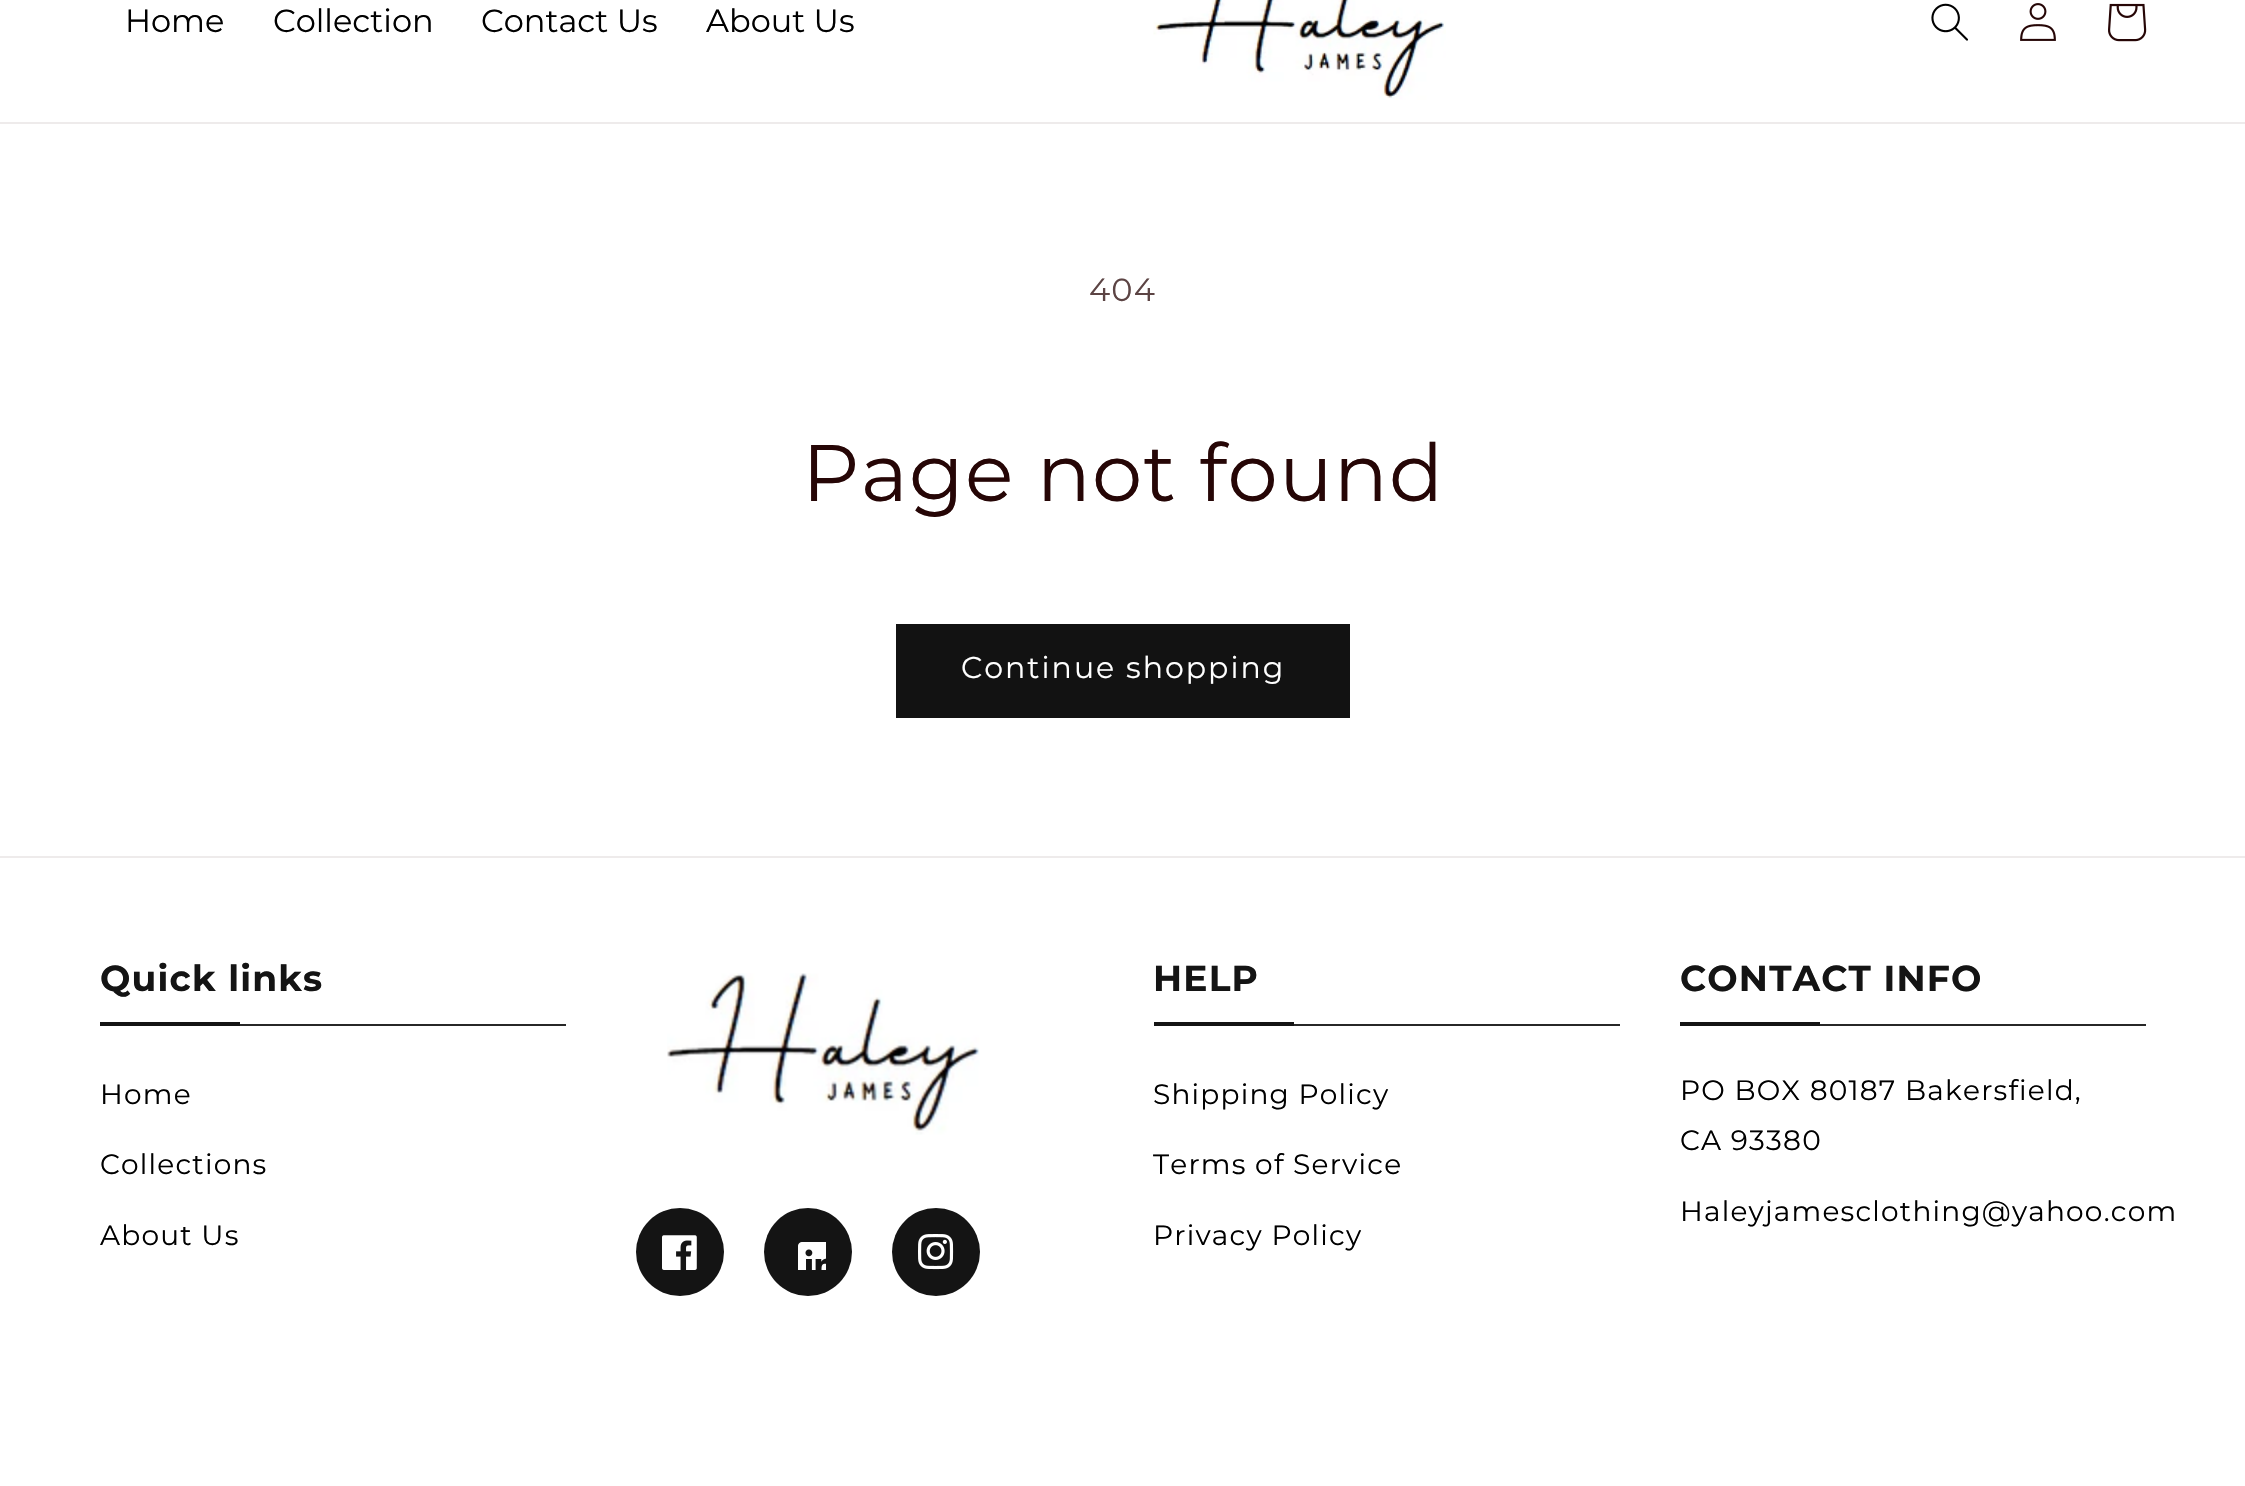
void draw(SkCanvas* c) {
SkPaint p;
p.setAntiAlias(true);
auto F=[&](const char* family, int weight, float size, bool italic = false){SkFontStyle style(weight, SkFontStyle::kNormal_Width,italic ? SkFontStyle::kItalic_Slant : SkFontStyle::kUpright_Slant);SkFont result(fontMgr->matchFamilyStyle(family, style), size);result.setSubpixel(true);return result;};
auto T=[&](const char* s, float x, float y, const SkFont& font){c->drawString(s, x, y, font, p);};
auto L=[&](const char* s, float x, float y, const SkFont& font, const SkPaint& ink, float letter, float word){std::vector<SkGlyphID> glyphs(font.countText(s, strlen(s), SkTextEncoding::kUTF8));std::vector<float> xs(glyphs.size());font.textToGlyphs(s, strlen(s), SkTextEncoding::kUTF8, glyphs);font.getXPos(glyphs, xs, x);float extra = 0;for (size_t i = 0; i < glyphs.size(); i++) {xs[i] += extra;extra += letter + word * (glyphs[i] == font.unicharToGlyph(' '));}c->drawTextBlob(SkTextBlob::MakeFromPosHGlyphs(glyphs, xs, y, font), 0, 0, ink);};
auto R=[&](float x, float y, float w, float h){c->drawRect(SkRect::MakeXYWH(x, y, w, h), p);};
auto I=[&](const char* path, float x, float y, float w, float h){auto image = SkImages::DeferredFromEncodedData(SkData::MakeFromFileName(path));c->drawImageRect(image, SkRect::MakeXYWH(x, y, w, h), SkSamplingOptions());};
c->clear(0xffffffff);
p.setColor(0xffeeebeb);
R(0,122,2245,2);
auto f1 = F("Montserrat",400,32);
p.setColor(0xff000000);
T("Home",125,32,f1);
T("Collection",273,32,f1);
T("Contact Us",481,32,f1);
T("About Us",706,32,f1);
I("1.png",1153,0,293,100);
I("2.png",1931,3,37,38);
I("3.png",2020,3,36,38);
I("4.png",2108,3,39,39);
p.setColor(0xff5c4444);
L("404",1089,301,f1,p,1.2,0);
auto f2 = F("Montserrat",400,80);
p.setColor(0xff260606);
L("Page not found",802,501,f2,p,1.2,0);
p.setStroke(true);
p.setStrokeWidth(2);
p.setColor(0xff121212);
c->drawRect(SkRect::MakeXYWH(897,625,452,92),p);
p.setStroke(false);
R(898,626,450,90);
auto f3 = F("Montserrat",400,30);
p.setColor(0xffffffff);
L("Continue shopping",961,678,f3,p,2,0);
p.setColor(0xffeeebeb);
R(0,856,2245,2);
p.setColor(0xff272727);
R(240,1024,326,2);
auto f4 = F("Montserrat",700,36);
p.setColor(0xff141414);
L("Quick links",100,991,f4,p,1.2,0);
R(100,1022,140,4);
auto f5 = F("Montserrat",400,28);
p.setColor(0xff000000);
L("Home",100,1104,f5,p,1.2,0);
L("Collections",100,1174,f5,p,1.2,0);
L("About Us",100,1245,f5,p,1.2,0);
I("5.png",667,973,313,162);
p.setColor(0xff141414);
c->drawCircle(680,1252,44,p);
I("6.png",662,1235,35,35);
c->drawCircle(808,1252,44,p);
I("7.png",798,1242,28,28);
c->drawCircle(936,1252,44,p);
I("8.png",918,1234,36,36);
p.setColor(0xff272727);
R(1294,1024,326,2);
p.setColor(0xff141414);
L("HELP",1153,991,f4,p,1.2,0);
R(1154,1022,140,4);
p.setColor(0xff000000);
L("Shipping Policy",1153,1104,f5,p,1.2,0);
L("Terms of Service",1153,1174,f5,p,1.2,0);
L("Privacy Policy",1153,1245,f5,p,1.2,0);
p.setColor(0xff272727);
R(1820,1024,326,2);
p.setColor(0xff141414);
L("CONTACT INFO",1680,991,f4,p,1.2,0);
R(1680,1022,140,4);
p.setColor(0xff000000);
L("PO BOX 80187 Bakersfield,",1680,1100,f5,p,1.2,0);
L("CA 93380",1680,1150,f5,p,1.2,0);
L("Haleyjamesclothing@yahoo.com",1680,1221,f5,p,1.2,0);
}
